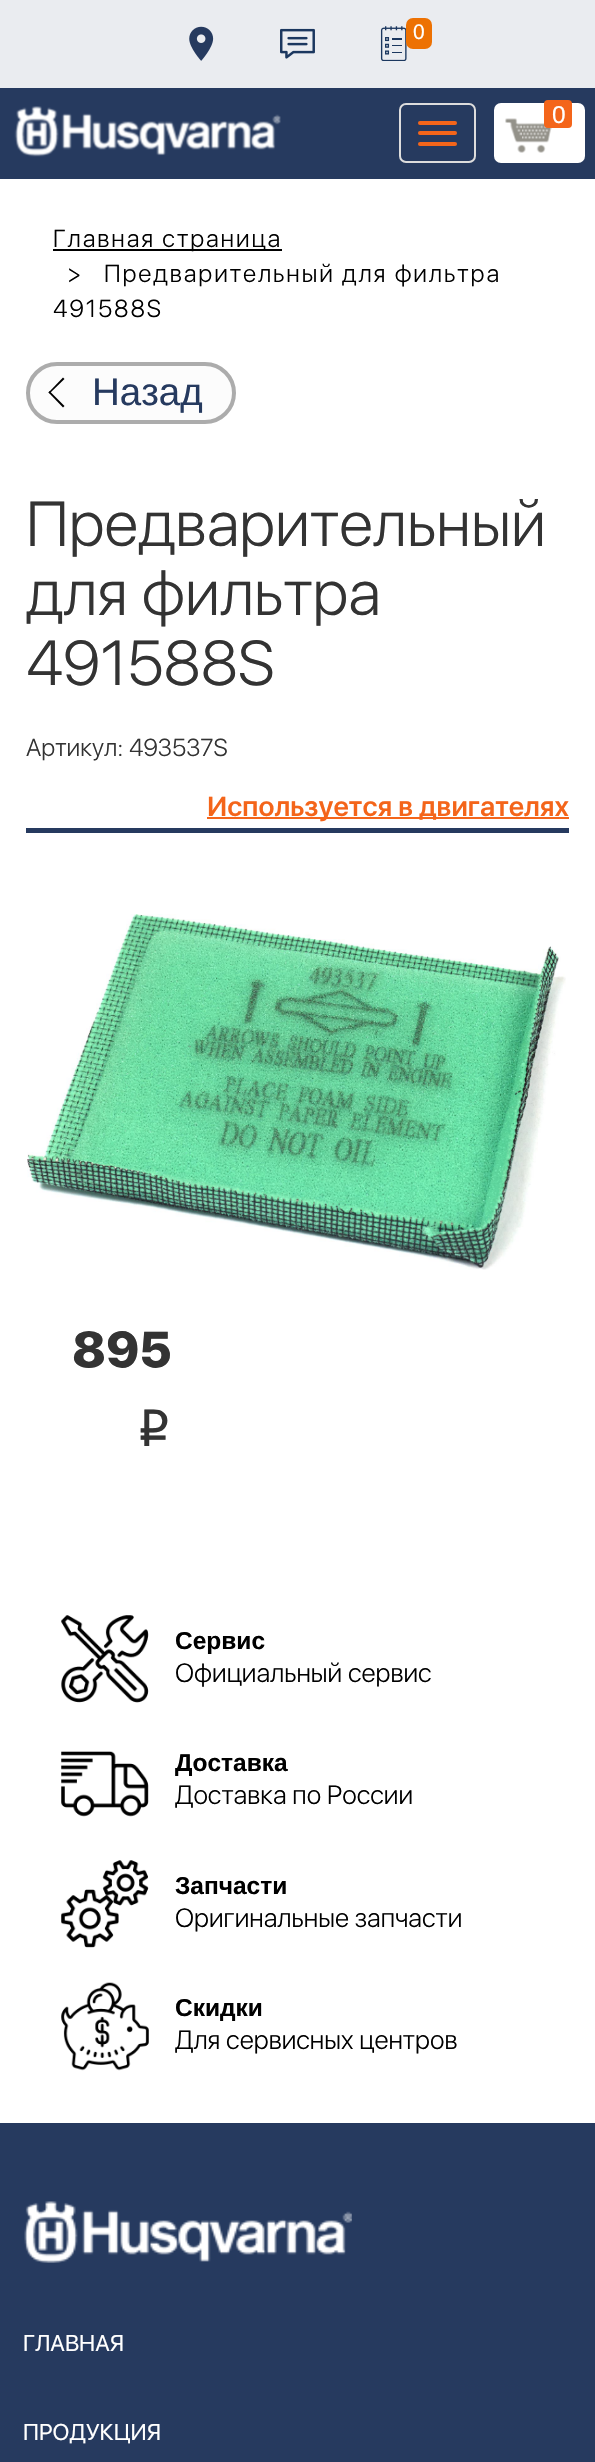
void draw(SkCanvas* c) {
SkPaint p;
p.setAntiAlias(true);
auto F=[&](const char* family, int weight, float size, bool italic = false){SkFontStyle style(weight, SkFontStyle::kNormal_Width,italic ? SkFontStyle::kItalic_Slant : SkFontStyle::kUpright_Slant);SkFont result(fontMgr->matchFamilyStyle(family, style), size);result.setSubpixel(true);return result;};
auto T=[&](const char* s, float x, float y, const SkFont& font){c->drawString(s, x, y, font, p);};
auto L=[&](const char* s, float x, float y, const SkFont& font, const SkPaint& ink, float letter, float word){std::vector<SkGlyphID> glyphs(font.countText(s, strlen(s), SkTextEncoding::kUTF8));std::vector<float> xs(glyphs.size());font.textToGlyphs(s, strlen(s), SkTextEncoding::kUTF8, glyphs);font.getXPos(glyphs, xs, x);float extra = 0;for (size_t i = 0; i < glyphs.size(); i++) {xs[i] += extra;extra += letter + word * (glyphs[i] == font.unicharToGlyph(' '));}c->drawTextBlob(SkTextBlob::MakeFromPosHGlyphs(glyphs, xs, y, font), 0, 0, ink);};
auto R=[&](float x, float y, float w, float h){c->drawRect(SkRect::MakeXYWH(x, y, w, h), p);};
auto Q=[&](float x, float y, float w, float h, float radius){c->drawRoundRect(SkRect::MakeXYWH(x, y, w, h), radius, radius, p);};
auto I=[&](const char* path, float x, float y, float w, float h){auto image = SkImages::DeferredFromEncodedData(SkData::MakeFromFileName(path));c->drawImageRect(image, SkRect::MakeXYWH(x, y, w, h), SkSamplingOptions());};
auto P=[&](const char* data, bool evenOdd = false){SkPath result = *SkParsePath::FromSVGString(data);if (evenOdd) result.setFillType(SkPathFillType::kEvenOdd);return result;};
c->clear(0xffffffff);
p.setColor(0xffeaecf0);
R(0,0,595,88);
I("1.png",189,26,25,35);
I("2.png",280,28,35,31);
I("3.png",380,26,27,35);
p.setColor(0xffed7102);
Q(406,18,26,31,7);
auto f1 = F("Liberation Sans",400,21);
p.setColor(0xffffffff);
T("0",413,39,f1);
p.setColor(0xff263a5f);
R(0,88,595,91);
I("4.png",14,106,267,51);
p.setStroke(true);
p.setStrokeWidth(2);
p.setColor(0xffdddddd);
c->drawRoundRect(SkRect::MakeXYWH(400,104,75,58),6,6,p);
p.setStroke(false);
p.setColor(0xfff4651a);
Q(418,121,39,4,2);
Q(418,131,39,4,2);
Q(418,142,39,4,2);
p.setColor(0xffffffff);
Q(494,103,91,60,7);
I("5.png",505,118,47,35);
p.setColor(0xfff4651a);
Q(544,100,28,28,4);
auto f2 = F("Liberation Sans",400,24.5);
p.setColor(0xffffffff);
T("0",552,123,f2);
p.setColor(0xff000000);
R(53,249,229,2);
auto f3 = F("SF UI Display",300,24.5);
L("Главная страница",53,247,f3,p,1.9,0);
L(">",67,282,f3,p,1.9,0);
L("Предварительный для фильтра",104,282,f3,p,1.9,0);
L("491588S",53,317,f3,p,1.9,0);
p.setColor(0xfffcfcfc);
c->drawRoundRect(SkRect::MakeXYWH(28,364,206,58),29,29,p);
p.setStroke(true);
p.setStrokeWidth(4);
p.setColor(0xffacacac);
c->drawRoundRect(SkRect::MakeXYWH(28,364,206,58),29,29,p);
p.setStroke(false);
p.setColor(0xff000000);
c->drawPath(P("M48.5 392.5l14.5-15l1.5 1.5l-15 14.5z"),p);
c->drawPath(P("M48.5 392.5l1-1.5l15 15l-1.5 1.5z"),p);
auto f4 = F("Liberation Sans",400,38.5);
p.setColor(0xff263a5f);
T("Назад",92,405,f4);
auto f5 = F("SF UI Display",300,63);
p.setColor(0xff333333);
T("Предварительный",26,546,f5);
T("для фильтра",26,615,f5);
T("491588S",26,685,f5);
T("Артикул: 493537S",26,756,f3);
p.setColor(0xfff4651a);
R(207,817,362,2);
auto f6 = F("SF UI Display",600,28);
T("Используется в двигателях",207,816,f6);
p.setColor(0xff263a5f);
R(26,828,543,5);
I("6.png",27,914,539,356);
auto f7 = F("SF UI Display",900,52);
p.setColor(0xff333333);
T("895",72,1367,f7);
auto f8 = F("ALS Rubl",400,52);
T("i",136,1446,f8);
I("7.png",61,1615,88,88);
auto f9 = F("Liberation Sans",700,24.5);
p.setColor(0xff000000);
T("Сервис",175,1649,f9);
auto f10 = F("SF UI Display",300,26.25);
T("Официальный сервис",175,1682,f10);
I("8.png",61,1751,88,66);
T("Доставка",175,1771,f9);
T("Доставка по России",175,1804,f10);
I("9.png",61,1860,88,88);
T("Запчасти",175,1894,f9);
T("Оригинальные запчасти",175,1927,f10);
I("10.png",61,1982,88,89);
T("Скидки",175,2016,f9);
T("Для сервисных центров",175,2049,f10);
p.setColor(0xff263a5f);
R(0,2123,595,339);
I("11.png",24,2201,328,62);
auto f11 = F("SF UI Display",400,22.75);
p.setColor(0xffffffff);
T("ГЛАВНАЯ",23,2351,f11);
T("ПРОДУКЦИЯ",23,2440,f11);
}
